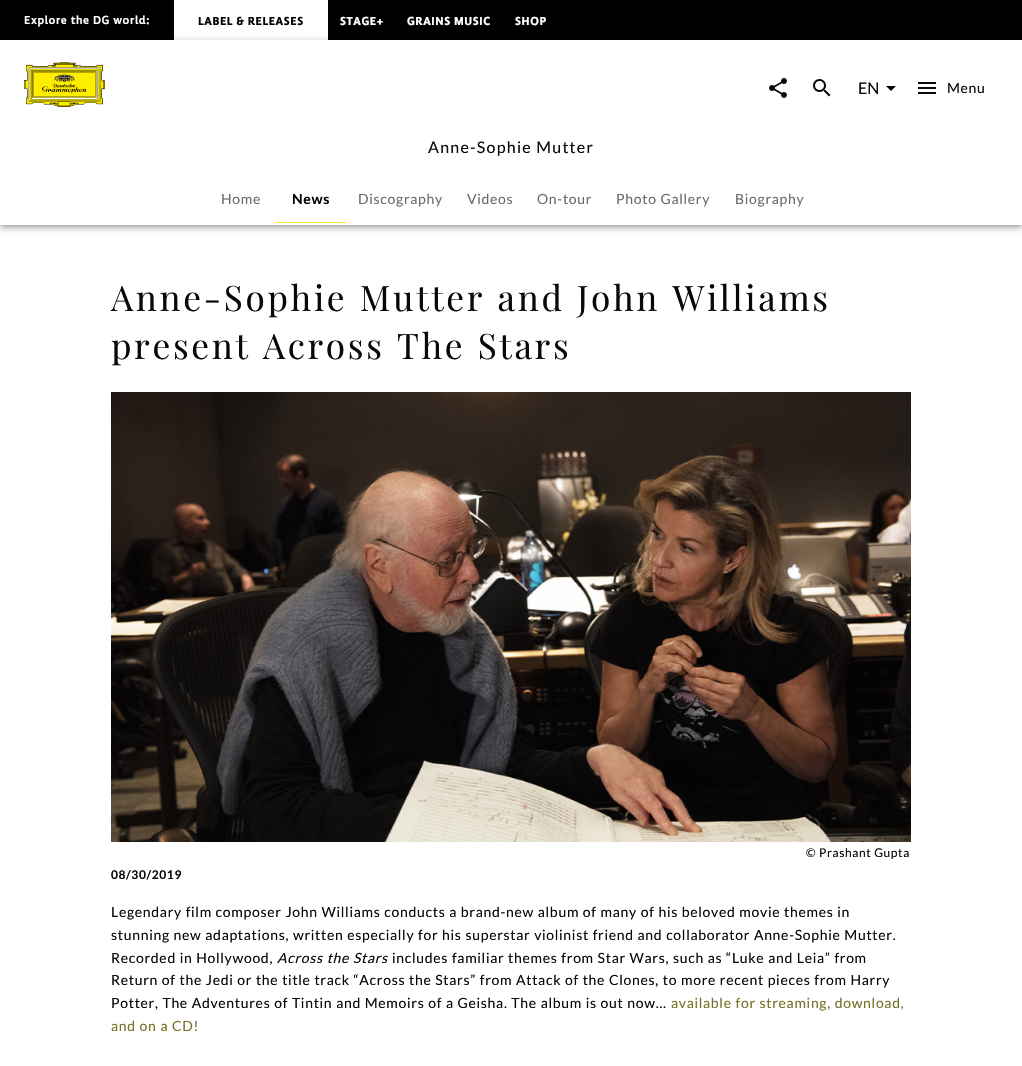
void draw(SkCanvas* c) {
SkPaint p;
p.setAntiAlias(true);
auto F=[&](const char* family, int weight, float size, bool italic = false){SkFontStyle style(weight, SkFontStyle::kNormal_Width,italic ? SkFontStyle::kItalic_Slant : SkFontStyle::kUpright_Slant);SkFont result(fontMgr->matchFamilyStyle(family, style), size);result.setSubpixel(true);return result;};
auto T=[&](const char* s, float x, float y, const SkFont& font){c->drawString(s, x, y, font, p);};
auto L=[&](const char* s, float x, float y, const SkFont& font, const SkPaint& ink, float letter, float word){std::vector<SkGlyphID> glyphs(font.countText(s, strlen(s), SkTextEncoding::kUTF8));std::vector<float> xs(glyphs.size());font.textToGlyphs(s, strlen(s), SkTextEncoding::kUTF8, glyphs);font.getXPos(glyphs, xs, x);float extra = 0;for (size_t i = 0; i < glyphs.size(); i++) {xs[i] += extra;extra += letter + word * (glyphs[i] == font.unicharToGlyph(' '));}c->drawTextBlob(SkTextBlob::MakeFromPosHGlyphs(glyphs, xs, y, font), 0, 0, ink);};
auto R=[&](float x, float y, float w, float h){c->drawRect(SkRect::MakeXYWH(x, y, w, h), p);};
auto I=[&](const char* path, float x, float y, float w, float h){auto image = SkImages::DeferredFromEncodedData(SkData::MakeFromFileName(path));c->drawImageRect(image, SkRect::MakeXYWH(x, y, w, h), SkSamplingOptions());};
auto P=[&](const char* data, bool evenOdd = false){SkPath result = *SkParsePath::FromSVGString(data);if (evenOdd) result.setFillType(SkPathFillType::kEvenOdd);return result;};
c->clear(0xffffffff);
p.setColor(0xff000000);
R(0,0,1022,40);
auto f1 = F("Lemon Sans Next",500,12);
p.setColor(0xffffffff);
L("Explore the DG world:",24,24,f1,p,.6,0);
R(174,0,154,40);
auto f2 = F("Lemon Sans Next",700,12);
p.setColor(0xff000000);
L("LABEL & RELEASES",198,25,f2,p,.6,0);
p.setColor(0xffffffff);
L("STAGE+",340,25,f2,p,.6,0);
L("GRAINS MUSIC",407,25,f2,p,.6,0);
L("SHOP",515,25,f2,p,.6,0);
p.setColor(0x1f000000);
p.setMaskFilter(SkMaskFilter::MakeBlur(kNormal_SkBlurStyle, 5));
c->drawRect(SkRect::MakeXYWH(0,41,1022,185),p);
p.setMaskFilter(nullptr);
p.setColor(0x24000000);
p.setMaskFilter(SkMaskFilter::MakeBlur(kNormal_SkBlurStyle, 2.5));
c->drawRect(SkRect::MakeXYWH(0,44,1022,185),p);
p.setMaskFilter(nullptr);
p.setColor(0x33000000);
p.setMaskFilter(SkMaskFilter::MakeBlur(kNormal_SkBlurStyle, 2));
c->drawRect(SkRect::MakeXYWH(1,43,1020,183),p);
p.setMaskFilter(nullptr);
p.setColor(0xffffffff);
R(0,40,1022,185);
I("1.png",24,62,81,45);
I("2.png",769,78,18,20);
I("3.png",813,79,18,18);
auto f3 = F("Lato",400,16);
p.setColor(0xff080808);
T("EN",858,94,f3);
c->drawPath(P("M886 86l5 5l5-5z"),p);
I("4.png",918,82,18,12);
auto f4 = F("Lato",400,14);
L("Menu",947,93,f4,p,.7,0);
L("Anne-Sophie Mutter",428,153,f3,p,1.25,0);
p.setColor(0xff6b6b6b);
L("Home",221,204,f4,p,.7,0);
auto f5 = F("Lato",700,14);
p.setColor(0xff000000);
L("News",292,204,f5,p,.7,0);
p.setColor(0xfff3ea2c);
R(276,222,70,1);
p.setColor(0xff6b6b6b);
L("Discography",358,204,f4,p,.7,0);
L("Videos",467,204,f4,p,.7,0);
L("On-tour",537,204,f4,p,.7,0);
L("Photo Gallery",616,204,f4,p,.7,.4);
L("Biography",735,204,f4,p,.7,0);
auto f6 = F("Playfair Display",400,35.2);
p.setColor(0xff080808);
L("Anne-Sophie Mutter and John Williams",111,311,f6,p,2.65,1);
L("present Across The Stars",111,359,f6,p,2.65,1);
I("5.png",111,392,800,450);
I("6.png",246,485,660,323);
auto f7 = F("Lato",400,12);
L("© Prashant Gupta",806,857,f7,p,.6,0);
auto f8 = F("Lato",700,12);
L("08/30/2019",111,879,f8,p,.6,0);
L("Legendary film composer John Williams conducts a brand-new album of many of his beloved movie themes in",111,917,f4,p,.7,.4);
L("stunning new adaptations, written especially for his superstar violinist friend and collaborator Anne-Sophie Mutter.",111,940,f4,p,.7,.4);
L("Recorded in Hollywood,",111,963,f4,p,.7,.4);
auto f9 = F("Lato",400,14,true);
L("Across the Stars",277,963,f9,p,.7,.4);
L("includes familiar themes from Star Wars, such as “Luke and Leia” from",392,963,f4,p,.7,.4);
L("Return of the Jedi or the title track “Across the Stars” from Attack of the Clones, to more recent pieces from Harry",111,985,f4,p,.7,.4);
L("Potter, The Adventures of Tintin and Memoirs of a Geisha. The album is out now…",111,1008,f4,p,.7,.4);
p.setColor(0xff777128);
L("available for streaming, download,",671,1008,f4,p,.7,.4);
L("and on a CD!",111,1031,f4,p,.7,.4);
}
